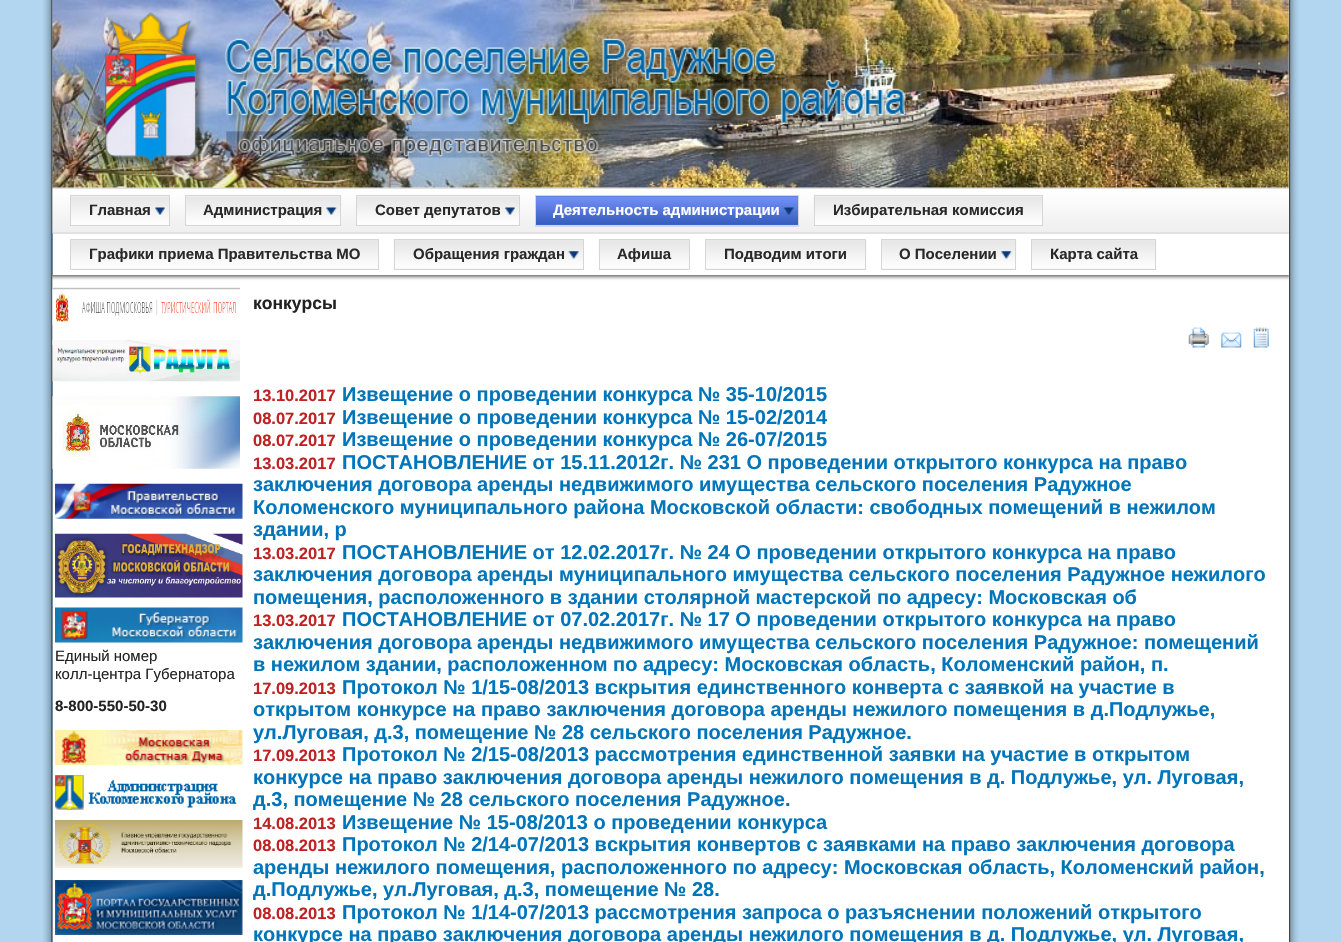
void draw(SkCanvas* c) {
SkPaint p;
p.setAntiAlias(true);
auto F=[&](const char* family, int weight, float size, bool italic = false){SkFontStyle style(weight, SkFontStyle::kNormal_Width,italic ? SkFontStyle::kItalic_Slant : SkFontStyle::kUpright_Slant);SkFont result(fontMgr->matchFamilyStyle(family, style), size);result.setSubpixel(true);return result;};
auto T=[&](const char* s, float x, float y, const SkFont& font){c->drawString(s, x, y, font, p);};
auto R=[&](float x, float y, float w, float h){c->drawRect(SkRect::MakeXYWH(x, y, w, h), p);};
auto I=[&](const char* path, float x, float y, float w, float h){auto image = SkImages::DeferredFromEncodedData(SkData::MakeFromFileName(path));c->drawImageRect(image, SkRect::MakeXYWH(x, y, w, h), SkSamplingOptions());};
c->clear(0xffb2d6f0);
I("1.png",43,0,10,942);
I("2.png",1289,0,10,942);
p.setColor(0xffffffff);
R(53,188,1236,754);
I("5.png",52,187,1237,47);
p.setColor(0xffe7e7e7);
R(53,0,1236,188);
I("3.png",52,0,1237,188);
I("4.png",105,12,806,160);
I("6.png",71,196,98,29);
p.setStroke(true);
p.setStrokeWidth(1);
p.setColor(0xffd6d6d6);
c->drawRect(SkRect::MakeXYWH(70.5,195.5,99,30),p);
auto f1 = F("Liberation Sans",700,15);
p.setStroke(false);
p.setColor(0xff292929);
T("Главная",89,215,f1);
I("7.png",155,207,10,8);
I("8.png",186,196,156,30);
p.setStroke(true);
p.setColor(0xffd6d6d6);
c->drawRect(SkRect::MakeXYWH(185.5,195.5,155,30),p);
p.setStroke(false);
p.setColor(0xff292929);
T("Администрация",203,215,f1);
I("9.png",326,207,11,8);
I("10.png",357,196,162,29);
p.setStroke(true);
p.setColor(0xffd6d6d6);
c->drawRect(SkRect::MakeXYWH(356.5,195.5,163,30),p);
p.setStroke(false);
p.setColor(0xff292929);
T("Совет депутатов",375,215,f1);
I("11.png",505,207,10,8);
I("12.png",535,196,264,31);
p.setStroke(true);
p.setColor(0xffd6d6d6);
c->drawRect(SkRect::MakeXYWH(535.5,195.5,263,30),p);
p.setStroke(false);
p.setColor(0xffffffff);
T("Деятельность администрации",553,215,f1);
I("13.png",783,207,11,8);
I("14.png",813,196,229,30);
p.setStroke(true);
p.setColor(0xffd6d6d6);
c->drawRect(SkRect::MakeXYWH(814.5,195.5,228,30),p);
p.setStroke(false);
p.setColor(0xff292929);
T("Избирательная комиссия",833,215,f1);
I("15.png",71,240,307,29);
p.setStroke(true);
p.setColor(0xffd6d6d6);
c->drawRect(SkRect::MakeXYWH(70.5,239.5,308,30),p);
p.setStroke(false);
p.setColor(0xff292929);
T("Графики приема Правительства МО",89,259,f1);
I("16.png",393,240,190,30);
p.setStroke(true);
p.setColor(0xffd6d6d6);
c->drawRect(SkRect::MakeXYWH(394.5,239.5,189,30),p);
p.setStroke(false);
p.setColor(0xff292929);
T("Обращения граждан",413,259,f1);
I("17.png",568,251,11,8);
I("18.png",598,240,91,30);
p.setStroke(true);
p.setColor(0xffd6d6d6);
c->drawRect(SkRect::MakeXYWH(599.5,239.5,90,30),p);
p.setStroke(false);
p.setColor(0xff292929);
T("Афиша",617,259,f1);
I("19.png",706,240,161,30);
p.setStroke(true);
p.setColor(0xffd6d6d6);
c->drawRect(SkRect::MakeXYWH(705.5,239.5,160,30),p);
p.setStroke(false);
p.setColor(0xff292929);
T("Подводим итоги",724,259,f1);
I("20.png",882,240,135,30);
p.setStroke(true);
p.setColor(0xffd6d6d6);
c->drawRect(SkRect::MakeXYWH(881.5,239.5,134,30),p);
p.setStroke(false);
p.setColor(0xff292929);
T("О Поселении",899,259,f1);
I("21.png",1001,251,11,8);
I("22.png",1032,240,125,30);
p.setStroke(true);
p.setColor(0xffd6d6d6);
c->drawRect(SkRect::MakeXYWH(1031.5,239.5,124,30),p);
p.setStroke(false);
p.setColor(0xff292929);
T("Карта сайта",1050,259,f1);
I("23.png",52,275,1237,70);
I("24.png",52,287,188,38);
I("25.png",52,340,188,42);
I("26.png",52,396,188,73);
I("27.png",55,483,188,36);
I("28.png",55,533,188,65);
I("29.png",55,607,188,36);
auto f2 = F("Liberation Sans",400,15);
p.setColor(0xff222222);
T("Единый номер",55,661,f2);
T("колл-центра Губернатора",55,679,f2);
T("8-800-550-50-30",55,711,f1);
I("30.png",55,730,188,35);
I("31.png",55,775,182,35);
I("32.png",55,820,188,50);
I("33.png",55,880,188,55);
auto f3 = F("Liberation Sans",700,17.5);
T("конкурсы",253,309,f3);
I("34.png",1188,327,21,21);
I("35.png",1221,332,21,16);
I("36.png",1253,327,16,21);
auto f4 = F("Liberation Sans",700,16.5);
p.setColor(0xffbe2222);
T("13.10.2017",253,401,f4);
auto f5 = F("Liberation Sans",700,20);
p.setColor(0xff0075ba);
T("Извещение о проведении конкурса № 35-10/2015",342,401,f5);
p.setColor(0xffbe2222);
T("08.07.2017",253,424,f4);
p.setColor(0xff0075ba);
T("Извещение о проведении конкурса № 15-02/2014",342,424,f5);
p.setColor(0xffbe2222);
T("08.07.2017",253,446,f4);
p.setColor(0xff0075ba);
T("Извещение о проведении конкурса № 26-07/2015",342,446,f5);
p.setColor(0xffbe2222);
T("13.03.2017",253,469,f4);
p.setColor(0xff0075ba);
T("ПОСТАНОВЛЕНИЕ от 15.11.2012г. № 231 О проведении открытого конкурса на право",342,469,f5);
T("заключения договора аренды недвижимого имущества сельского поселения Радужное",253,491,f5);
T("Коломенского муниципального района Московской области: свободных помещений в нежилом",253,514,f5);
T("здании, р",253,536,f5);
p.setColor(0xffbe2222);
T("13.03.2017",253,559,f4);
p.setColor(0xff0075ba);
T("ПОСТАНОВЛЕНИЕ от 12.02.2017г. № 24 О проведении открытого конкурса на право",342,559,f5);
T("заключения договора аренды муниципального имущества сельского поселения Радужное нежилого",253,581,f5);
T("помещения, расположенного в здании столярной мастерской по адресу: Московская об",253,604,f5);
p.setColor(0xffbe2222);
T("13.03.2017",253,626,f4);
p.setColor(0xff0075ba);
T("ПОСТАНОВЛЕНИЕ от 07.02.2017г. № 17 О проведении открытого конкурса на право",342,626,f5);
T("заключения договора аренды недвижимого имущества сельского поселения Радужное: помещений",253,649,f5);
T("в нежилом здании, расположенном по адресу: Московская область, Коломенский район, п.",253,671,f5);
p.setColor(0xffbe2222);
T("17.09.2013",253,694,f4);
p.setColor(0xff0075ba);
T("Протокол № 1/15-08/2013 вскрытия единственного конверта с заявкой на участие в",342,694,f5);
T("открытом конкурсе на право заключения договора аренды нежилого помещения в д.Подлужье,",253,716,f5);
T("ул.Луговая, д.3, помещение № 28 сельского поселения Радужное.",253,739,f5);
p.setColor(0xffbe2222);
T("17.09.2013",253,761,f4);
p.setColor(0xff0075ba);
T("Протокол № 2/15-08/2013 рассмотрения единственной заявки на участие в открытом",342,761,f5);
T("конкурсе на право заключения договора аренды нежилого помещения в д. Подлужье, ул. Луговая,",253,784,f5);
T("д.3, помещение № 28 сельского поселения Радужное.",253,806,f5);
p.setColor(0xffbe2222);
T("14.08.2013",253,829,f4);
p.setColor(0xff0075ba);
T("Извещение № 15-08/2013 о проведении конкурса",342,829,f5);
p.setColor(0xffbe2222);
T("08.08.2013",253,851,f4);
p.setColor(0xff0075ba);
T("Протокол № 2/14-07/2013 вскрытия конвертов с заявками на право заключения договора",342,851,f5);
T("аренды нежилого помещения, расположенного по адресу: Московская область, Коломенский район,",253,874,f5);
T("д.Подлужье, ул.Луговая, д.3, помещение № 28.",253,896,f5);
p.setColor(0xffbe2222);
T("08.08.2013",253,919,f4);
p.setColor(0xff0075ba);
T("Протокол № 1/14-07/2013 рассмотрения запроса о разъяснении положений открытого",342,919,f5);
T("конкурсе на право заключения договора аренды нежилого помещения в д. Подлужье, ул. Луговая,",253,941,f5);
}
